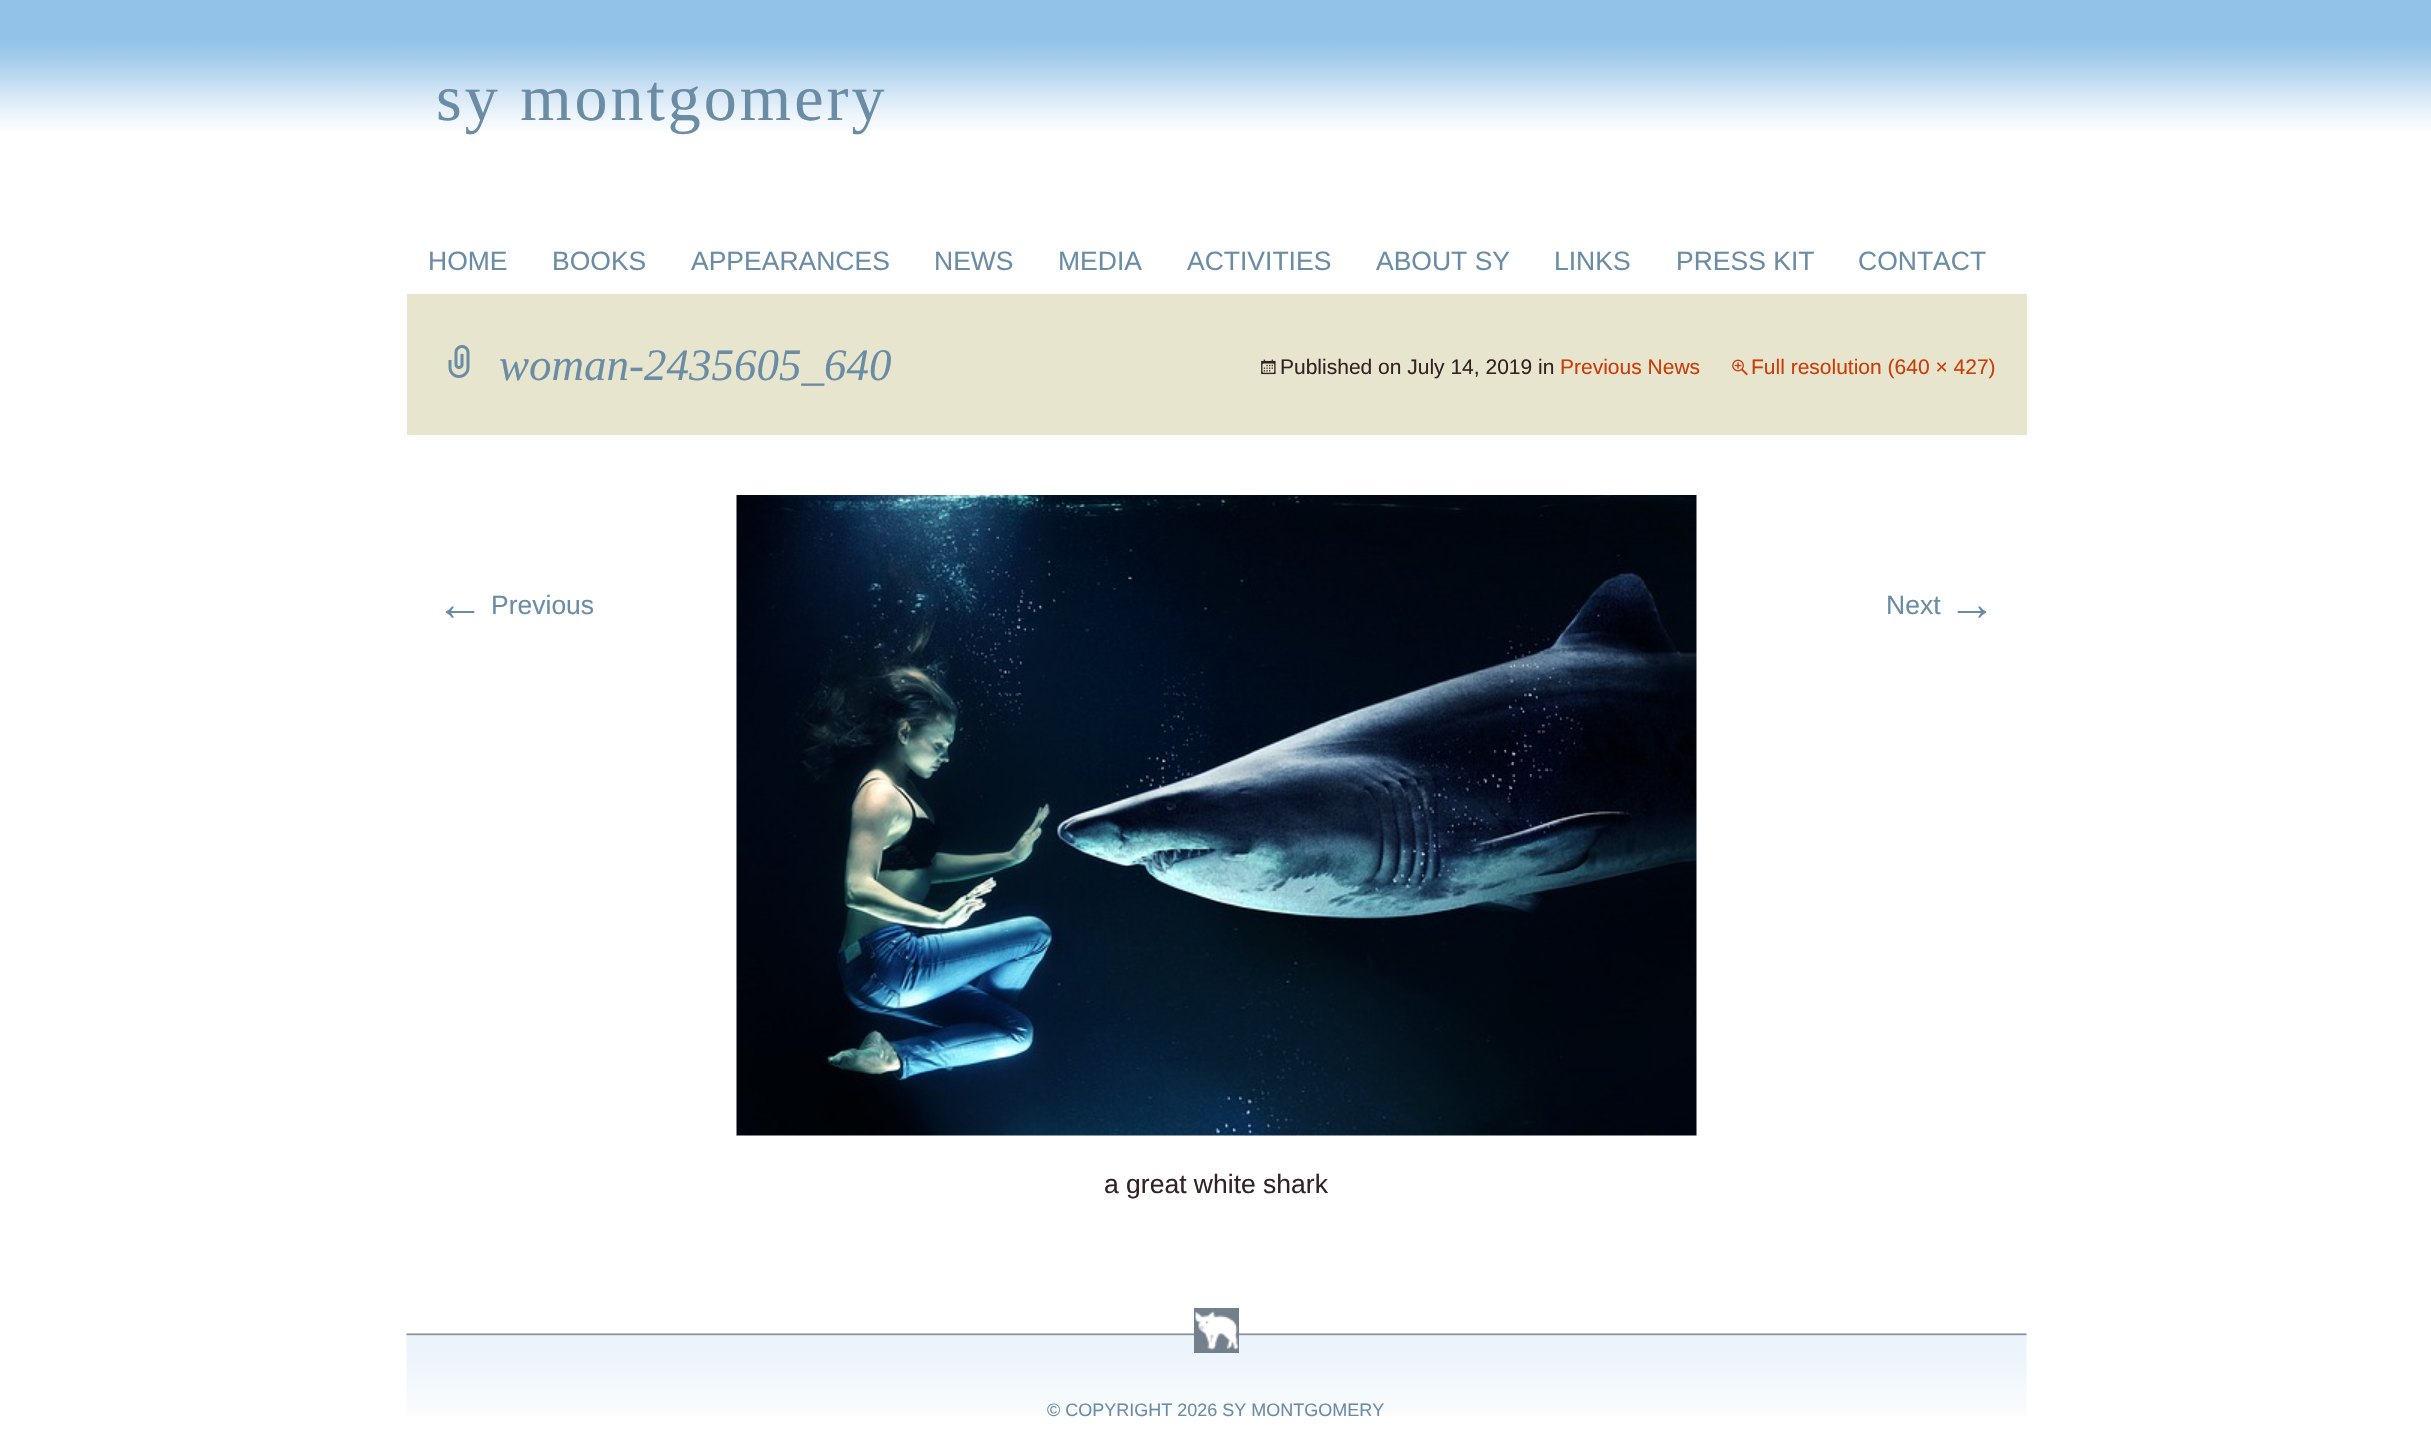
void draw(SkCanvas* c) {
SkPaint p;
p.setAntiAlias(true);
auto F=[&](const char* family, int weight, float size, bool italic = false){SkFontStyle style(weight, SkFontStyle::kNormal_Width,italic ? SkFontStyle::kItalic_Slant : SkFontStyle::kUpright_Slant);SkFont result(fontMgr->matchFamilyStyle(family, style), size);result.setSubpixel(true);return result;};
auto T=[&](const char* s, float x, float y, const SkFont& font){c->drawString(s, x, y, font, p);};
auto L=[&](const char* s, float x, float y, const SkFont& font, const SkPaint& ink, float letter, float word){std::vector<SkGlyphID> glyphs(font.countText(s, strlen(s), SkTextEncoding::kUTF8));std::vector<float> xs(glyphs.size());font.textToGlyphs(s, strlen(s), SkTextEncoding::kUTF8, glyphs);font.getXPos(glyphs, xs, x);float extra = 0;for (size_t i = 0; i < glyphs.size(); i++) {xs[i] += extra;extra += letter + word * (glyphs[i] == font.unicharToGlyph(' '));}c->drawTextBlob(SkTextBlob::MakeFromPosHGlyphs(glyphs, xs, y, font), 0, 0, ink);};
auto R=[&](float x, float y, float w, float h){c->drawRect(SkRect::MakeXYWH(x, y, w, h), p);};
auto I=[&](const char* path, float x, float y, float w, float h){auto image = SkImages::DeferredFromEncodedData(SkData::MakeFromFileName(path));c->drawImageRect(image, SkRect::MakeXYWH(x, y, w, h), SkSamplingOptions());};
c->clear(0xffffffff);
I("1.png",0,0,2431,130);
auto f1 = F("Liberation Serif",400,66);
p.setColor(0xff6a8ca5);
L("sy montgomery",436,120,f1,p,3,0);
auto f2 = F("Liberation Sans",400,26.5);
T("HOME",428,270,f2);
T("BOOKS",552,270,f2);
T("APPEARANCES",691,270,f2);
T("NEWS",934,270,f2);
T("MEDIA",1058,270,f2);
T("ACTIVITIES",1187,270,f2);
T("ABOUT SY",1376,270,f2);
T("LINKS",1554,270,f2);
T("PRESS KIT",1676,270,f2);
T("CONTACT",1858,270,f2);
p.setColor(0xffe8e5ce);
R(407,294,1620,141);
I("2.png",448,345,22,33);
auto f3 = F("Liberation Serif",400,45,true);
p.setColor(0xff6a8ca5);
T("woman-2435605_640",499,380,f3);
I("3.png",1261,359,15,16);
auto f4 = F("Liberation Sans",400,21);
p.setColor(0xff332222);
T("Published on July 14, 2019 in",1280,374,f4);
p.setColor(0xffca3c08);
T("Previous News",1560,374,f4);
I("4.png",1732,359,16,17);
T("Full resolution (640 × 427)",1751,374,f4);
I("5.png",736,495,961,641);
auto f5 = F("Liberation Sans",400,48);
p.setColor(0xff6a8ca5);
T("←",436,620,f5);
T("Previous",491,614,f2);
T("Next",1886,614,f2);
T("→",1948,620,f5);
p.setColor(0xff332222);
T("a great white shark",1104,1193,f2);
I("6.png",406,1333,1621,83);
I("7.png",1194,1308,45,45);
auto f6 = F("Liberation Sans",400,18);
p.setColor(0xff6a8ca5);
T("© COPYRIGHT 2026 SY MONTGOMERY",1047,1416,f6);
}
